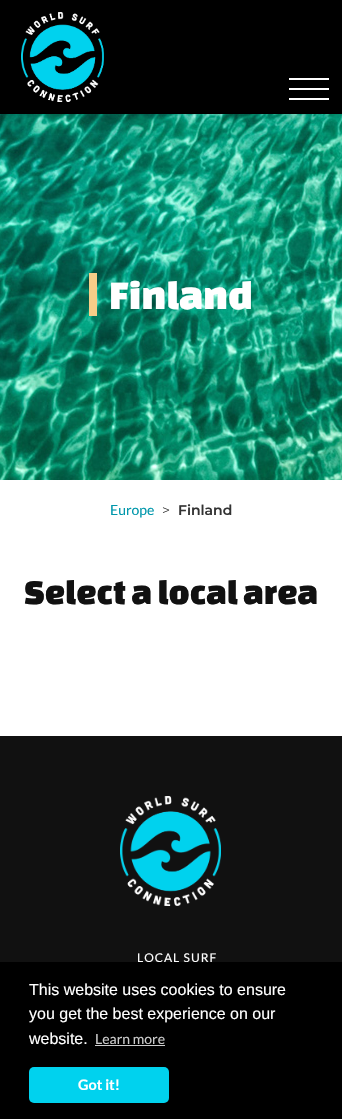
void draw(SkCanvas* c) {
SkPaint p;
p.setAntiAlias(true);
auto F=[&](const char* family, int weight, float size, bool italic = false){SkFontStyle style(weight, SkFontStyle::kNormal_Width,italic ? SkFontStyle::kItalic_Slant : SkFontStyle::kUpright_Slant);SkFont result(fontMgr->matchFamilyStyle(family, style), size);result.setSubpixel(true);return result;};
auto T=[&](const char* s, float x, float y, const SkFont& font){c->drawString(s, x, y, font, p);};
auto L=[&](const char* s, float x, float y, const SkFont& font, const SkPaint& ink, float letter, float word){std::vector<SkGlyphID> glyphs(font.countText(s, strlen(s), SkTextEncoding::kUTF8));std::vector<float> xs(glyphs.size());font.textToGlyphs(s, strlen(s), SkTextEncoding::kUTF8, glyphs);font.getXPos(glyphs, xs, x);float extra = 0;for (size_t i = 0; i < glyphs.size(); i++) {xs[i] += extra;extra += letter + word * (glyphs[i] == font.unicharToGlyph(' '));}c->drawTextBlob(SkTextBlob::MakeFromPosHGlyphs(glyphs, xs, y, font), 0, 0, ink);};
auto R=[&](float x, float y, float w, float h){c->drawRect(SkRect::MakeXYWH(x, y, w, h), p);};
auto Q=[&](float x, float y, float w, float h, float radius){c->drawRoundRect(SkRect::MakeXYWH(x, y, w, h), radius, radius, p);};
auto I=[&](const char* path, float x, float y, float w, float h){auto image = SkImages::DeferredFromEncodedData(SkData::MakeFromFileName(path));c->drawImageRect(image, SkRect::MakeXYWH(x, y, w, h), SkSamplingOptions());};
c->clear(0xffffffff);
I("2.png",0,114,342,366);
p.setColor(0x26000000);
p.setMaskFilter(SkMaskFilter::MakeBlur(kNormal_SkBlurStyle, 12));
c->drawRect(SkRect::MakeXYWH(0,0,342,114),p);
p.setMaskFilter(nullptr);
p.setColor(0xff000000);
R(0,0,342,114);
I("1.png",21,12,83,90);
p.setColor(0xffffffff);
R(289,78,40,2);
R(289,88,40,2);
R(289,98,40,2);
p.setColor(0xfff7cd88);
R(89,273,8,43);
auto f1 = F("Changa One",400,42);
p.setColor(0xffffffff);
T("Finland",109,309,f1);
auto f2 = F("Lato",400,14);
p.setColor(0xff0097ab);
T("Europe",110,515,f2);
auto f3 = F("Montserrat",400,14);
p.setColor(0xff333333);
T(">",162,515,f3);
auto f4 = F("Montserrat",600,14);
T("Finland",178,515,f4);
auto f5 = F("Changa One",400,36);
p.setColor(0xff111111);
T("Select a local area",24,604,f5);
R(0,736,342,226);
I("3.png",120,796,101,110);
auto f6 = F("Lato",400,12);
p.setColor(0xffffffff);
L("LOCAL SURF",137,962,f6,p,1,0);
p.setColor(0xff000000);
R(0,962,342,157);
auto f7 = F("Liberation Sans",400,16);
p.setColor(0xffffffff);
T("This website uses cookies to ensure",29,995,f7);
T("you get the best experience on our",29,1019,f7);
T("website.",29,1044,f7);
p.setColor(0xffcccccc);
T("Learn more",95,1044,f2);
R(95,1045,70,1);
p.setColor(0xff00d2ee);
Q(29,1067,140,36,5);
auto f8 = F("Lato",700,14.5);
p.setColor(0xffffffff);
T("Got it!",78,1090,f8);
}
